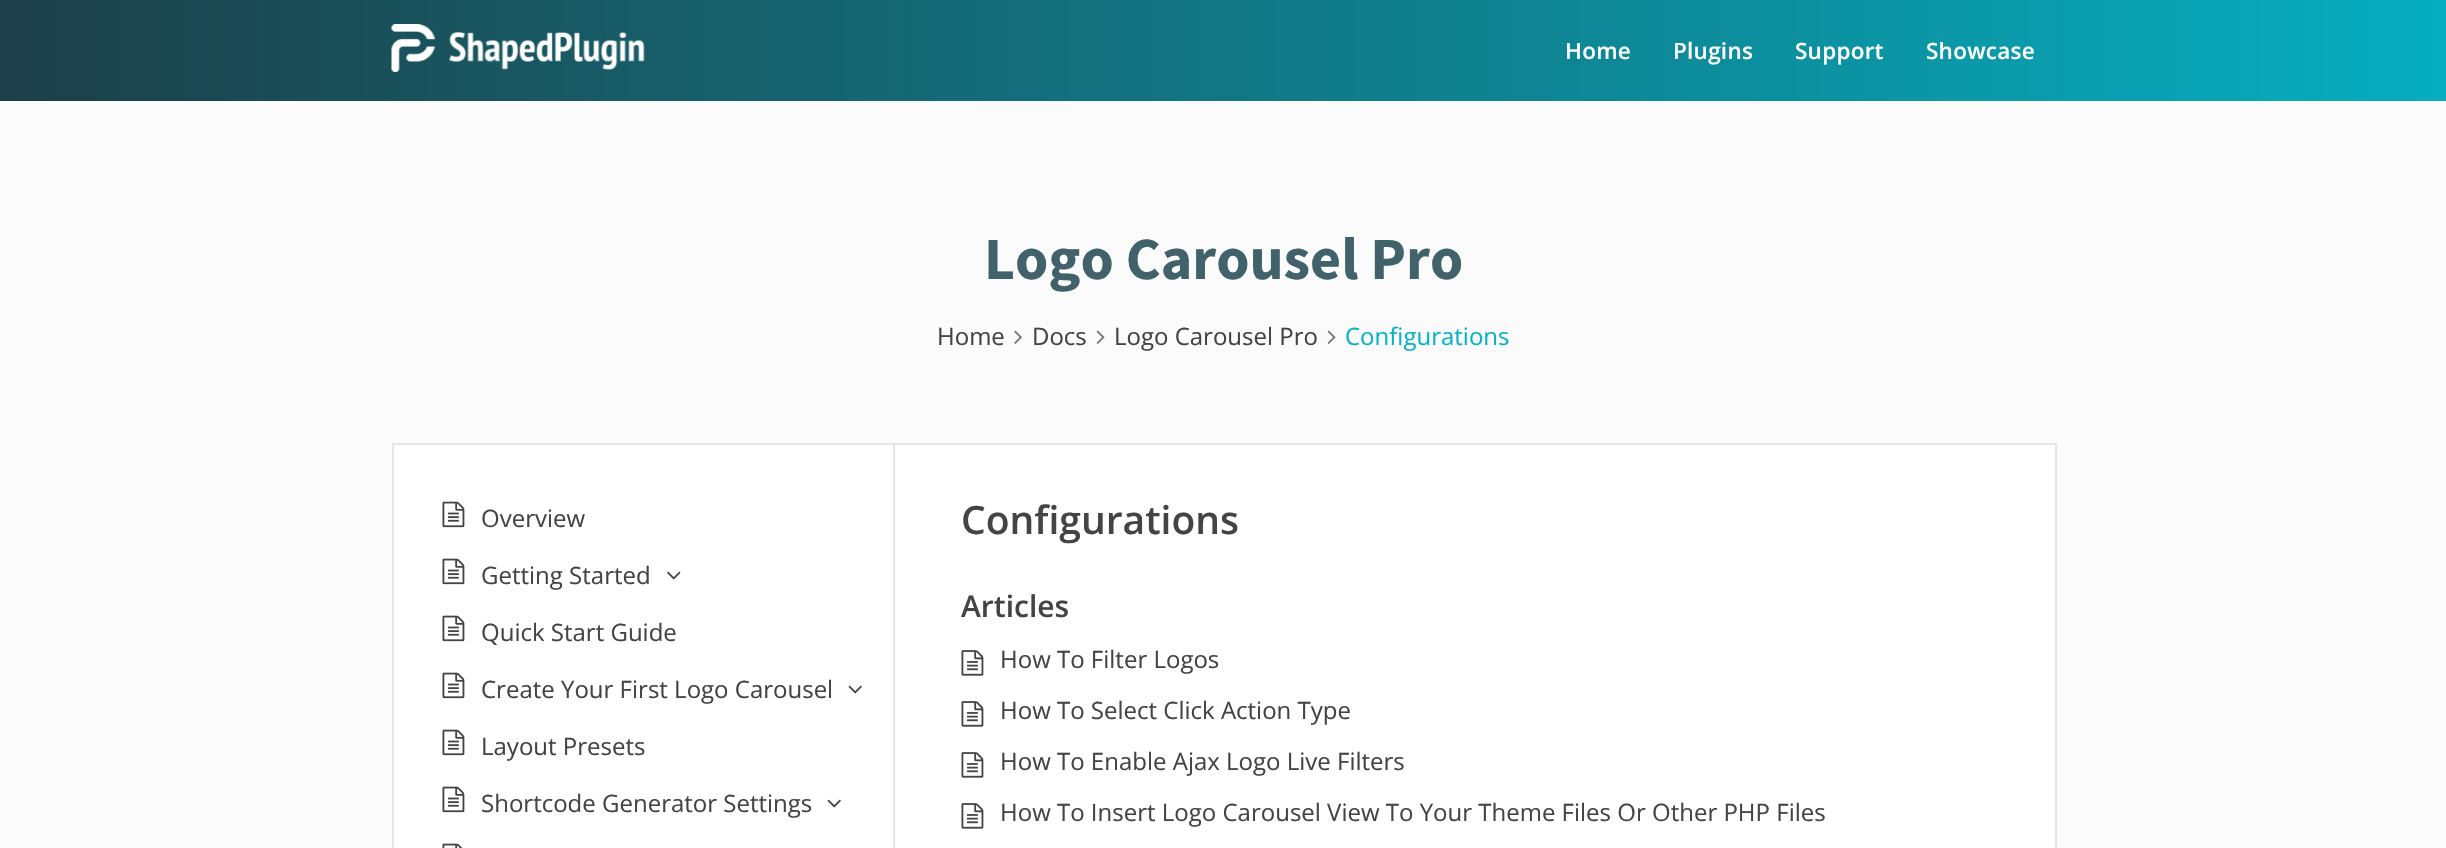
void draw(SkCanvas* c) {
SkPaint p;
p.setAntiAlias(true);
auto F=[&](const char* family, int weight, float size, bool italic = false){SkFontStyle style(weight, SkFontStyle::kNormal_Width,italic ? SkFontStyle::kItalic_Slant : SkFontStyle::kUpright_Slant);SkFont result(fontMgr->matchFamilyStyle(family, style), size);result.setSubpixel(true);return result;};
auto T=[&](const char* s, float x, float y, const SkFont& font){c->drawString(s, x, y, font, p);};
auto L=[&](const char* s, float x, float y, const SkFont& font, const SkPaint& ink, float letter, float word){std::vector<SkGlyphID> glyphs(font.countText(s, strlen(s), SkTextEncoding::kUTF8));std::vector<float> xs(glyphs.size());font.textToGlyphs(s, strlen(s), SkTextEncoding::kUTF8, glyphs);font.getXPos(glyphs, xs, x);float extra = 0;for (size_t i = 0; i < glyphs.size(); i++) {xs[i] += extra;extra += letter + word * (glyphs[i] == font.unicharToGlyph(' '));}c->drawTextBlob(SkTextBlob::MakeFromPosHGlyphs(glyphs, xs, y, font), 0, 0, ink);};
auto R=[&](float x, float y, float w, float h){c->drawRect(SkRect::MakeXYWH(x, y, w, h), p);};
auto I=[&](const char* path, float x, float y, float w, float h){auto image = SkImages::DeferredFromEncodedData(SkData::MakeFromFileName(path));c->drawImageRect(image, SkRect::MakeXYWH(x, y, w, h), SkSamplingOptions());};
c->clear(0xfffbfbfb);
{
const SkColor colors[] = {0xff06aec0,0xff1d3f48};
const float stops[] = {0,1};
const SkPoint ends[] = {{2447,50}, {0,50}};
p.setShader(SkGradientShader::MakeLinear(ends, colors, stops, 2, SkTileMode::kClamp));
p.setAlpha(255);
}
R(0,0,2446,101);
I("1.png",391,24,254,48);
auto f1 = F("Open Sans",600,22.5);
p.setShader(nullptr);
p.setColor(0xffffffff);
L("Home",1565,59,f1,p,.25,0);
L("Plugins",1673,59,f1,p,.25,0);
L("Support",1795,59,f1,p,.25,0);
L("Showcase",1926,59,f1,p,.25,0);
auto f2 = F("Source Sans Pro",700,60);
p.setColor(0xff42626b);
T("Logo Carousel Pro",984,279,f2);
auto f3 = F("Open Sans",400,24);
p.setColor(0xff444444);
T("Home",937,345,f3);
I("2.png",1014,330,8,14);
T("Docs",1032,345,f3);
I("3.png",1096,330,9,14);
T("Logo Carousel Pro",1114,345,f3);
I("3.png",1327,330,9,14);
p.setColor(0xff05b3c6);
T("Configurations",1345,345,f3);
p.setColor(0xffffffff);
c->drawRect(SkRect::MakeXYWH(393,444,1663,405),p);
p.setStroke(true);
p.setStrokeWidth(2);
p.setColor(0xffe5e5e5);
c->drawRect(SkRect::MakeXYWH(393,444,1663,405),p);
I("4.png",442,501,23,27);
p.setStroke(false);
p.setColor(0xff444444);
T("Overview",481,527,f3);
I("4.png",442,558,23,27);
T("Getting Started",481,584,f3);
I("5.png",667,571,14,9);
I("4.png",442,615,23,27);
T("Quick Start Guide",481,641,f3);
I("4.png",442,672,23,27);
T("Create Your First Logo Carousel",481,698,f3);
I("6.png",848,685,14,9);
I("4.png",442,729,23,27);
T("Layout Presets",481,755,f3);
I("4.png",442,786,23,27);
T("Shortcode Generator Settings",481,812,f3);
I("6.png",827,799,14,9);
I("7.png",442,843,21,5);
p.setColor(0xffe5e5e5);
R(893,444,2,404);
auto f4 = F("Open Sans",600,39);
p.setColor(0xff444444);
T("Configurations",961,534,f4);
auto f5 = F("Open Sans",600,30);
T("Articles",961,617,f5);
I("8.png",961,650,23,26);
T("How To Filter Logos",1000,668,f3);
I("8.png",961,701,23,26);
T("How To Select Click Action Type",1000,719,f3);
I("8.png",961,752,23,26);
T("How To Enable Ajax Logo Live Filters",1000,770,f3);
I("8.png",961,803,23,26);
T("How To Insert Logo Carousel View To Your Theme Files Or Other PHP Files",1000,821,f3);
}
